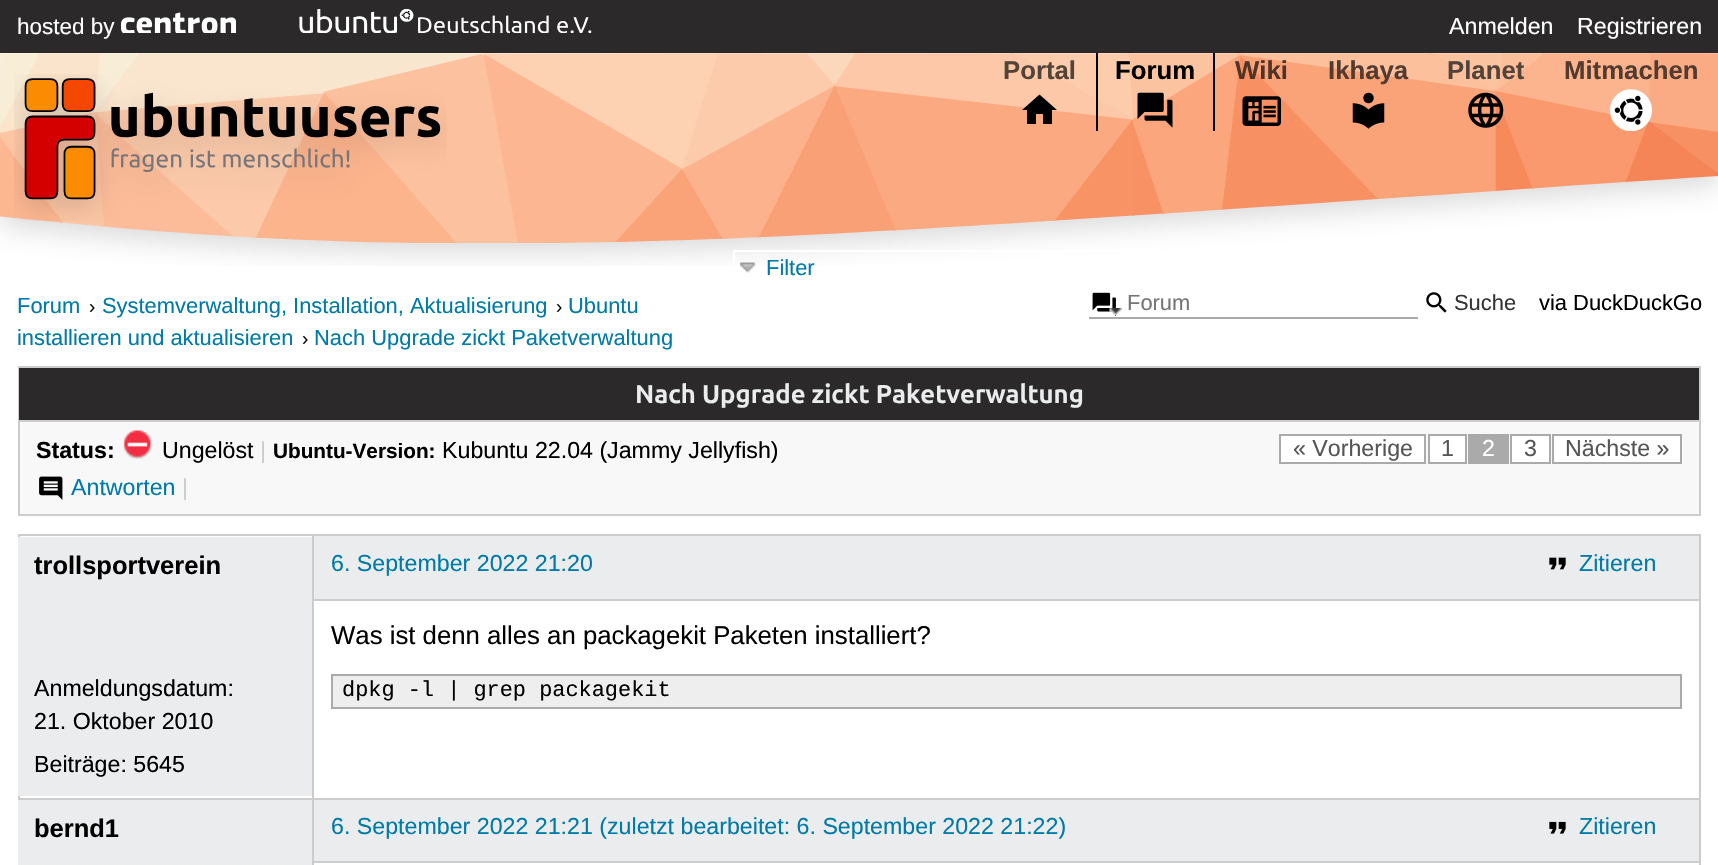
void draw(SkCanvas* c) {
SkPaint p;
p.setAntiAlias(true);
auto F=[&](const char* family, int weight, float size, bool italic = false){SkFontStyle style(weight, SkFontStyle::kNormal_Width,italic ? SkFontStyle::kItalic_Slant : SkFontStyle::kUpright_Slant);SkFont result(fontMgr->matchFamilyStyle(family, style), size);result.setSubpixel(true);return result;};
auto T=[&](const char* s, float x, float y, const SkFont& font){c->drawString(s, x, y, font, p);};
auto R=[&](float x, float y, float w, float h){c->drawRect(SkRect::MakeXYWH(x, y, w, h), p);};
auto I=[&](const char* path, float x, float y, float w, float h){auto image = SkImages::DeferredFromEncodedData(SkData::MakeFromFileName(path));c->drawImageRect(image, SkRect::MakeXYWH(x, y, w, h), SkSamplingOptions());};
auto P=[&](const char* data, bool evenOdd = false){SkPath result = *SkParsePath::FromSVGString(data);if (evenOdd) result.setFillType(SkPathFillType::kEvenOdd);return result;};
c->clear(0xffffffff);
p.setColor(0xff2b2929);
R(0,0,1718,53);
auto f1 = F("Liberation Sans",400,22.5);
p.setColor(0xffffffff);
T("hosted by",17,34,f1);
I("1.png",121,12,115,21);
I("2.png",299,9,293,24);
auto f2 = F("Liberation Sans",400,23.2);
T("Anmelden",1449,34,f2);
T("Registrieren",1577,34,f2);
I("3.png",0,53,1718,213);
I("4.png",14,74,433,147);
auto f3 = F("Liberation Sans",700,25.75);
p.setColor(0xff534338);
T("Portal",1003,79,f3);
p.setColor(0xff000000);
c->drawPath(P("M1036 124v-10h7v10h9v-14h5l-17.5-15.5l-17.5 15.5h5v14z"),p);
R(1213,53,2,78);
R(1096,53,2,78);
T("Forum",1115,79,f3);
I("5.png",1137,92,36,36);
p.setColor(0xff523426);
T("Wiki",1235,79,f3);
I("6.png",1242,96,39,30);
p.setColor(0xff533b2f);
T("Ikhaya",1328,79,f3);
I("7.png",1352,92,33,37);
p.setColor(0xff534338);
T("Planet",1447,79,f3);
I("8.png",1468,92,36,36);
p.setColor(0xff533b2f);
T("Mitmachen",1564,79,f3);
I("9.png",1610,89,42,42);
p.setStroke(true);
p.setStrokeWidth(2);
p.setColor(0xffffffff);
c->drawRect(SkRect::MakeXYWH(734,251,422,39),p);
I("10.png",740,262,16,11);
auto f4 = F("Liberation Sans",400,21.9);
p.setStroke(false);
p.setColor(0xff007aa6);
T("Filter",766,275,f4);
T("Forum",17,313,f4);
auto f5 = F("Liberation Sans",400,19);
p.setColor(0xff000000);
T("›",89,313,f5);
p.setColor(0xff007aa6);
T("Systemverwaltung, Installation, Aktualisierung",102,313,f4);
p.setColor(0xff000000);
T("›",556,313,f5);
p.setColor(0xff007aa6);
T("Ubuntu",568,313,f4);
T("installieren und aktualisieren",17,345,f4);
p.setColor(0xff000000);
T("›",302,345,f5);
p.setColor(0xff007aa6);
T("Nach Upgrade zickt Paketverwaltung",314,345,f4);
I("12.png",1092,292,24,24);
I("11.png",1109,308,13,7);
p.setColor(0xffaaaaaa);
R(1089,317,329,2);
p.setColor(0xff757575);
T("Forum",1127,310,f4);
I("13.png",1426,292,21,21);
p.setColor(0xff333333);
T("Suche",1454,310,f4);
p.setColor(0xff000000);
T("via DuckDuckGo",1539,310,f4);
p.setColor(0xfff8f8f8);
R(20,422,1679,92);
p.setStroke(true);
p.setColor(0xffcccccc);
c->drawRect(SkRect::MakeXYWH(19,367,1681,148),p);
p.setStroke(false);
p.setColor(0xff2b2929);
R(19,368,1680,52);
p.setColor(0xffcccccc);
R(19,420,1680,2);
auto f6 = F("Ubuntu",700,25.75);
p.setColor(0xffeaecee);
T("Nach Upgrade zickt Paketverwaltung",635,403,f6);
auto f7 = F("Liberation Sans",700,23.2);
p.setColor(0xff000000);
T("Status:",36,458,f7);
I("14.png",123,430,28,29);
T("Ungelöst",162,458,f2);
p.setColor(0xffcccccc);
T("|",260,458,f2);
auto f8 = F("Liberation Sans",700,20.75);
p.setColor(0xff000000);
T("Ubuntu-Version:",273,458,f8);
T("Kubuntu 22.04 (Jammy Jellyfish)",442,458,f2);
p.setColor(0xffffffff);
c->drawRect(SkRect::MakeXYWH(1280,435,145,28),p);
p.setStroke(true);
p.setColor(0xffaaaaaa);
c->drawRect(SkRect::MakeXYWH(1280,435,145,28),p);
p.setStroke(false);
p.setColor(0xff555555);
T("« Vorherige",1293,456,f2);
p.setColor(0xffffffff);
c->drawRect(SkRect::MakeXYWH(1429,435,37,28),p);
p.setStroke(true);
p.setColor(0xffaaaaaa);
c->drawRect(SkRect::MakeXYWH(1429,435,37,28),p);
p.setStroke(false);
p.setColor(0xff555555);
T("1",1441,456,f2);
p.setColor(0xffaaaaaa);
R(1468,434,41,30);
p.setColor(0xffffffff);
T("2",1482,456,f2);
c->drawRect(SkRect::MakeXYWH(1511,435,39,28),p);
p.setStroke(true);
p.setColor(0xffaaaaaa);
c->drawRect(SkRect::MakeXYWH(1511,435,39,28),p);
p.setStroke(false);
p.setColor(0xff555555);
T("3",1524,456,f2);
p.setColor(0xffffffff);
c->drawRect(SkRect::MakeXYWH(1553,435,128,28),p);
p.setStroke(true);
p.setColor(0xffaaaaaa);
c->drawRect(SkRect::MakeXYWH(1553,435,128,28),p);
p.setStroke(false);
p.setColor(0xff555555);
T("Nächste »",1565,456,f2);
I("15.png",39,476,24,24);
p.setColor(0xff007aa6);
T("Antworten",71,495,f2);
p.setColor(0xffcccccc);
T("|",182,495,f2);
R(18,534,1683,2);
R(1699,534,2,331);
R(18,534,2,264);
p.setColor(0xffeaecee);
R(18,537,294,259);
auto f9 = F("Liberation Sans",700,25.5);
p.setColor(0xff000000);
T("trollsportverein",34,574,f9);
T("Anmeldungsdatum:",34,696,f2);
T("21. Oktober 2010",34,729,f2);
T("Beiträge: 5645",34,772,f2);
p.setColor(0xffeaecee);
R(314,536,1385,63);
p.setColor(0xffcccccc);
R(313,599,1386,2);
p.setColor(0xff007aa6);
T("6. September 2022 21:20",331,571,f2);
I("16.png",1549,557,17,13);
T("Zitieren",1579,571,f2);
auto f10 = F("Liberation Sans",400,25.75);
p.setColor(0xff000000);
T("Was ist denn alles an packagekit Paketen installiert?",331,644,f10);
p.setColor(0xffeeeeee);
c->drawRect(SkRect::MakeXYWH(332,675,1349,33),p);
p.setStroke(true);
p.setColor(0xffaaaaaa);
c->drawRect(SkRect::MakeXYWH(332,675,1349,33),p);
auto f11 = F("Liberation Mono",400,21.9);
p.setStroke(false);
p.setColor(0xff000000);
T("dpkg -l | grep packagekit",342,696,f11);
p.setColor(0xffcccccc);
R(18,798,1683,2);
R(313,861,1386,2);
R(312,534,2,331);
p.setColor(0xffeaecee);
R(18,800,294,65);
p.setColor(0xff000000);
T("bernd1",34,837,f9);
p.setColor(0xffeaecee);
R(314,800,1385,61);
p.setColor(0xff007aa6);
T("6. September 2022 21:21 (zuletzt bearbeitet: 6. September 2022 21:22)",331,834,f2);
I("17.png",1549,821,17,13);
T("Zitieren",1579,834,f2);
}
